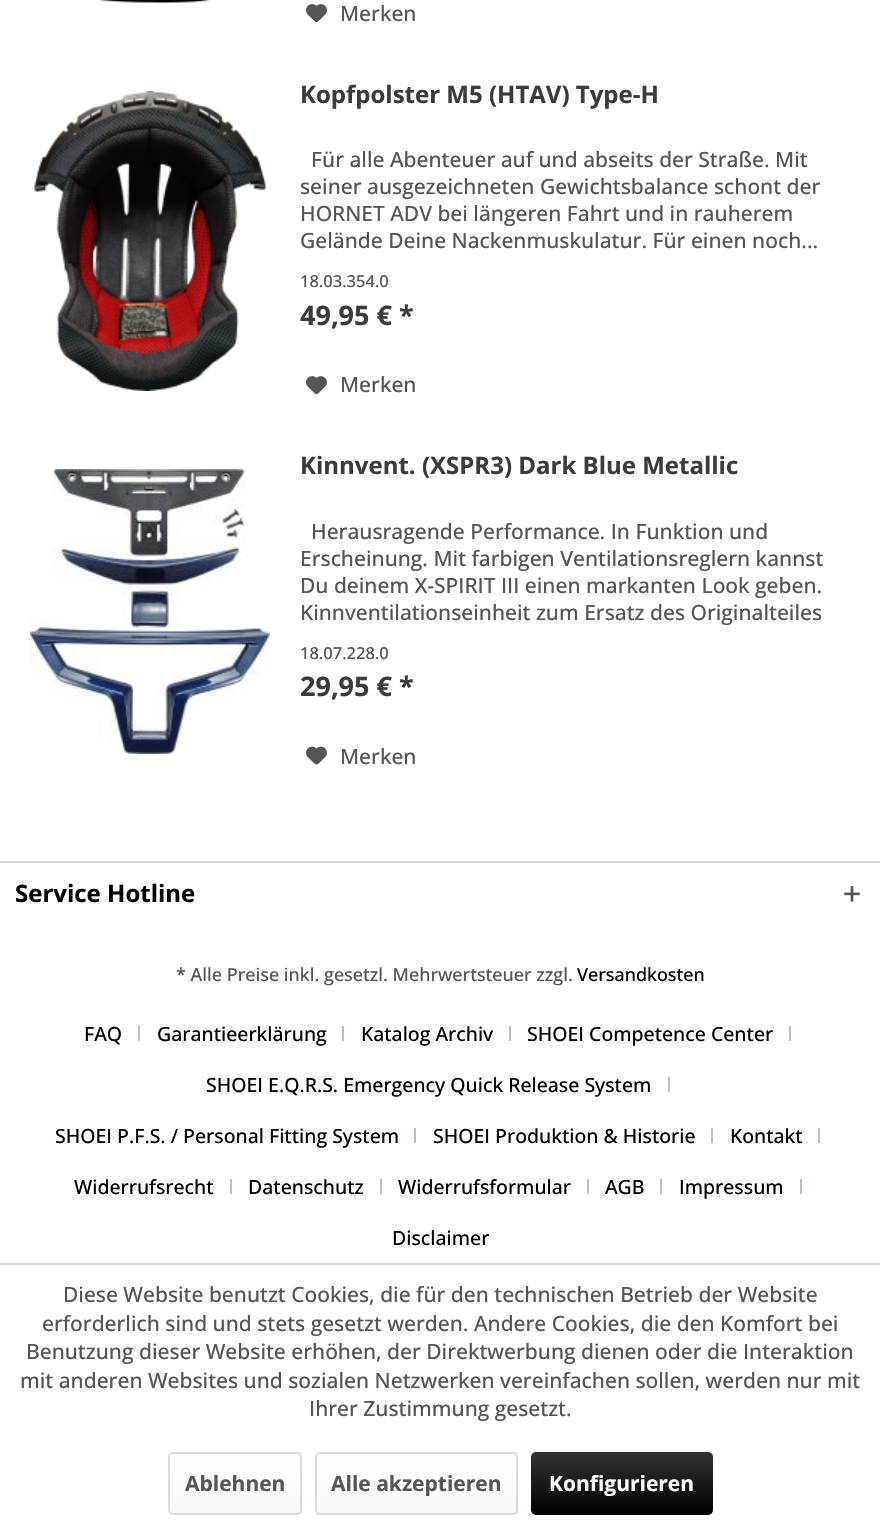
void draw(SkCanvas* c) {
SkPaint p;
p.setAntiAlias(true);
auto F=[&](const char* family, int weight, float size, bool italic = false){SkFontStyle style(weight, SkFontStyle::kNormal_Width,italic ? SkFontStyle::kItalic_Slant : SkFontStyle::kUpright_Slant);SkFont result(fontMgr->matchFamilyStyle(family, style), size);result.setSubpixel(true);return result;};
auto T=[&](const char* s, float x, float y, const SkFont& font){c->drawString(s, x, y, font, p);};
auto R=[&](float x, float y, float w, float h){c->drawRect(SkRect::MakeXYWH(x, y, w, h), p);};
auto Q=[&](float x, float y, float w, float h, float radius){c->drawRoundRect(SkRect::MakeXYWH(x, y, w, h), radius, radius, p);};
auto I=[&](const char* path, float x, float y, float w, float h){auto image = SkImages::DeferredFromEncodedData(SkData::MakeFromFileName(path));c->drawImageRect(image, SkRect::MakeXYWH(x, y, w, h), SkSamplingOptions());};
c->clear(0xffffffff);
I("1.png",98,0,113,3);
I("2.png",306,4,21,19);
auto f1 = F("Open Sans",500,21);
p.setColor(0xff555555);
T("Merken",340,21,f1);
I("3.png",34,91,232,300);
auto f2 = F("Open Sans",700,24);
p.setColor(0xff3b3b3b);
T("Kopfpolster M5 (HTAV) Type-H",300,103,f2);
p.setColor(0xff555555);
T("Für alle Abenteuer auf und abseits der Straße. Mit",311,167,f1);
T("seiner ausgezeichneten Gewichtsbalance schont der",300,194,f1);
T("HORNET ADV bei längeren Fahrt und in rauherem",300,221,f1);
T("Gelände Deine Nackenmuskulatur. Für einen noch...",300,248,f1);
auto f3 = F("Open Sans",500,16.5);
T("18.03.354.0",300,287,f3);
auto f4 = F("Open Sans",700,27);
p.setColor(0xff3b3b3b);
T("49,95 € *",300,325,f4);
I("2.png",306,376,21,19);
p.setColor(0xff555555);
T("Merken",340,392,f1);
p.setColor(0xff3b3b3b);
T("Kinnvent. (XSPR3) Dark Blue Metallic",300,474,f2);
I("4.png",30,469,240,285);
p.setColor(0xff555555);
T("Herausragende Performance. In Funktion und",311,539,f1);
T("Erscheinung. Mit farbigen Ventilationsreglern kannst",300,566,f1);
T("Du deinem X-SPIRIT III einen markanten Look geben.",300,593,f1);
T("Kinnventilationseinheit zum Ersatz des Originalteiles",300,620,f1);
T("18.07.228.0",300,659,f3);
p.setColor(0xff3b3b3b);
T("29,95 € *",300,696,f4);
I("5.png",306,746,21,19);
p.setColor(0xff555555);
T("Merken",340,764,f1);
p.setColor(0xffdadae5);
R(0,861,880,2);
p.setColor(0xff000000);
T("Service Hotline",15,902,f2);
I("6.png",844,886,16,16);
auto f5 = F("Open Sans",500,18);
p.setColor(0xff555555);
T("* Alle Preise inkl. gesetzl. Mehrwertsteuer zzgl.",176,981,f5);
p.setColor(0xff000000);
T("Versandkosten",577,981,f5);
auto f6 = F("Open Sans",500,19.5);
T("FAQ",84,1041,f6);
p.setColor(0xffbcbcd0);
R(138,1026,2,15);
p.setColor(0xff000000);
T("Garantieerklärung",157,1041,f6);
p.setColor(0xffbcbcd0);
R(342,1026,2,15);
p.setColor(0xff000000);
T("Katalog Archiv",361,1041,f6);
p.setColor(0xffbcbcd0);
R(509,1026,2,15);
p.setColor(0xff000000);
T("SHOEI Competence Center",527,1041,f6);
p.setColor(0xffbcbcd0);
R(789,1026,2,15);
p.setColor(0xff000000);
T("SHOEI E.Q.R.S. Emergency Quick Release System",206,1092,f6);
p.setColor(0xffbcbcd0);
R(668,1077,2,15);
p.setColor(0xff000000);
T("SHOEI P.F.S. / Personal Fitting System",55,1143,f6);
p.setColor(0xffbcbcd0);
R(414,1128,2,15);
p.setColor(0xff000000);
T("SHOEI Produktion & Historie",433,1143,f6);
p.setColor(0xffbcbcd0);
R(711,1128,2,15);
p.setColor(0xff000000);
T("Kontakt",730,1143,f6);
p.setColor(0xffbcbcd0);
R(818,1128,2,15);
p.setColor(0xff000000);
T("Widerrufsrecht",74,1194,f6);
p.setColor(0xffbcbcd0);
R(230,1179,2,15);
p.setColor(0xff000000);
T("Datenschutz",248,1194,f6);
p.setColor(0xffbcbcd0);
R(380,1179,2,15);
p.setColor(0xff000000);
T("Widerrufsformular",398,1194,f6);
p.setColor(0xffbcbcd0);
R(587,1179,2,15);
p.setColor(0xff000000);
T("AGB",605,1194,f6);
p.setColor(0xffbcbcd0);
R(660,1179,2,15);
p.setColor(0xff000000);
T("Impressum",679,1194,f6);
p.setColor(0xffbcbcd0);
R(800,1179,2,15);
p.setColor(0xff000000);
T("Disclaimer",392,1245,f6);
p.setColor(0xffdadae5);
R(0,1263,880,2);
p.setColor(0xff555555);
T("Diese Website benutzt Cookies, die für den technischen Betrieb der Website",63,1302,f1);
T("erforderlich sind und stets gesetzt werden. Andere Cookies, die den Komfort bei",42,1331,f1);
T("Benutzung dieser Website erhöhen, der Direktwerbung dienen oder die Interaktion",26,1359,f1);
T("mit anderen Websites und sozialen Netzwerken vereinfachen sollen, werden nur mit",20,1388,f1);
T("Ihrer Zustimmung gesetzt.",309,1416,f1);
{
const SkColor colors[] = {0xffffffff,0xfff8f8fa};
const float stops[] = {0,1};
const SkPoint ends[] = {{235,1454}, {235,1514}};
p.setShader(SkGradientShader::MakeLinear(ends, colors, stops, 2, SkTileMode::kClamp));
p.setAlpha(255);
}
Q(170,1454,130,60,3);
p.setStroke(true);
p.setStrokeWidth(2);
p.setShader(nullptr);
p.setColor(0xffdadae5);
c->drawRoundRect(SkRect::MakeXYWH(169,1453,132,61),4,4,p);
auto f7 = F("Open Sans",700,21);
p.setStroke(false);
p.setColor(0xff555555);
T("Ablehnen",185,1491,f7);
{
const SkColor colors[] = {0xffffffff,0xfff8f8fa};
const float stops[] = {0,1};
const SkPoint ends[] = {{416,1454}, {416,1514}};
p.setShader(SkGradientShader::MakeLinear(ends, colors, stops, 2, SkTileMode::kClamp));
p.setAlpha(255);
}
Q(317,1454,199,60,3);
p.setStroke(true);
p.setShader(nullptr);
p.setColor(0xffdadae5);
c->drawRoundRect(SkRect::MakeXYWH(316,1453,201,61),4,4,p);
p.setStroke(false);
p.setColor(0xff555555);
T("Alle akzeptieren",331,1491,f7);
{
const SkColor colors[] = {0xff333333,0xff000000};
const float stops[] = {0,1};
const SkPoint ends[] = {{622,1452}, {622,1515}};
p.setShader(SkGradientShader::MakeLinear(ends, colors, stops, 2, SkTileMode::kClamp));
p.setAlpha(255);
}
Q(531,1452,182,63,5);
p.setShader(nullptr);
p.setColor(0xffffffff);
T("Konfigurieren",549,1491,f7);
}
